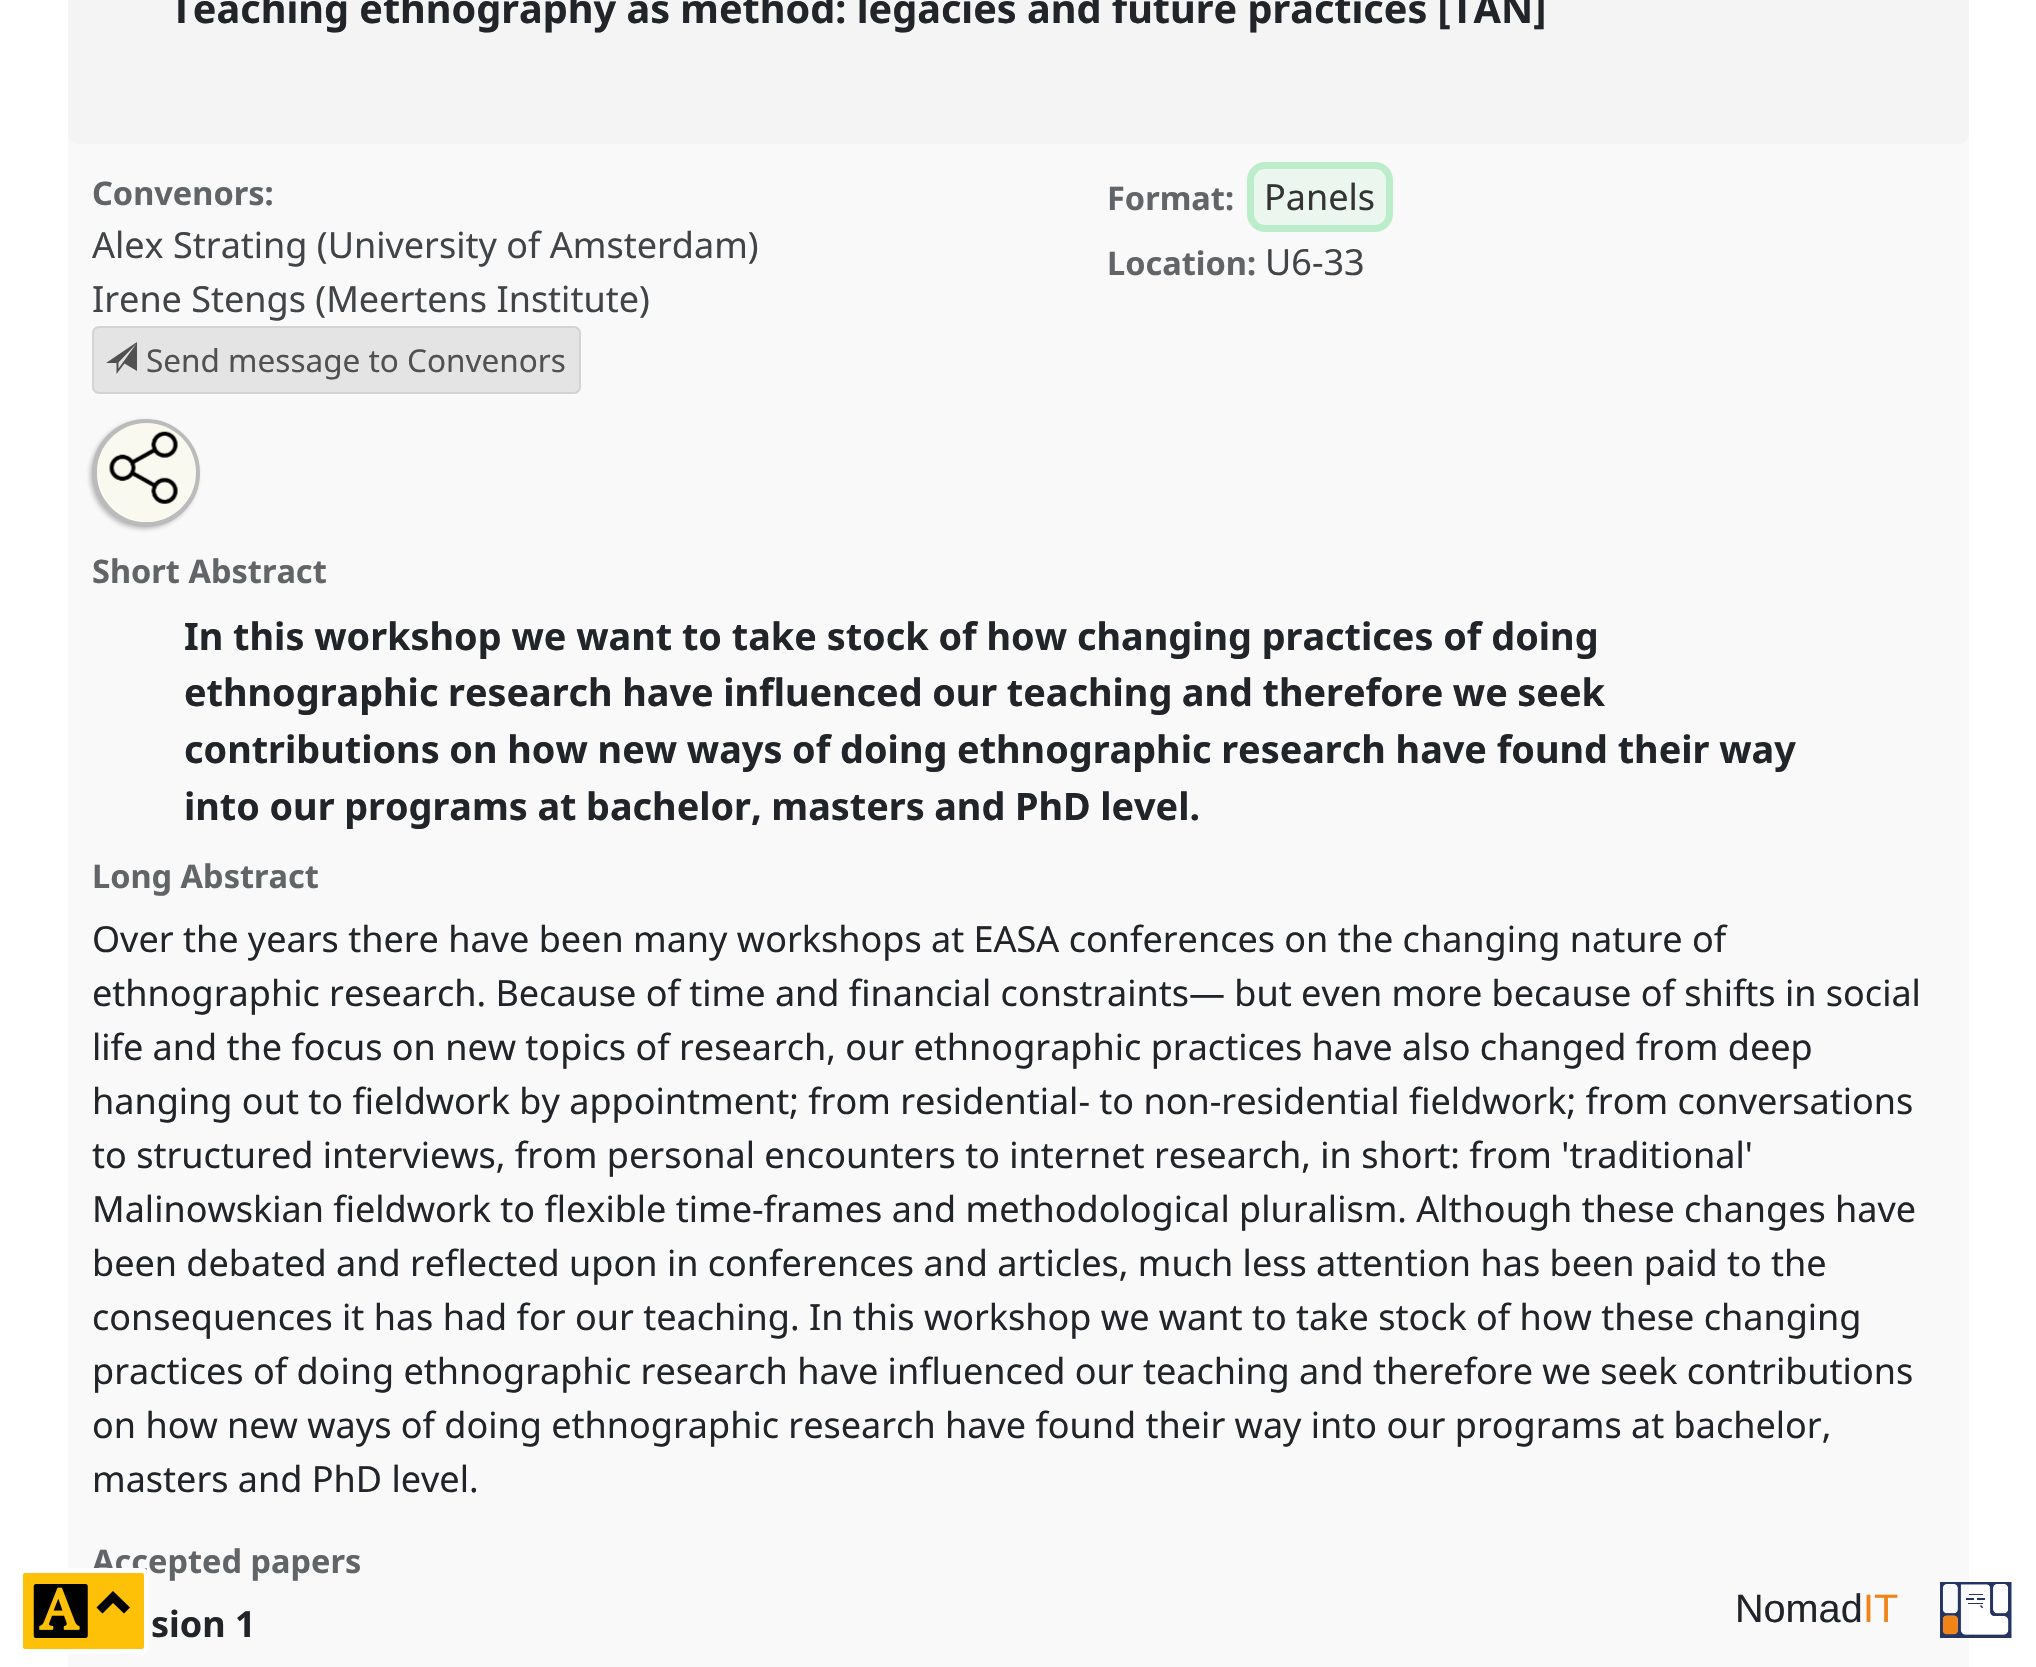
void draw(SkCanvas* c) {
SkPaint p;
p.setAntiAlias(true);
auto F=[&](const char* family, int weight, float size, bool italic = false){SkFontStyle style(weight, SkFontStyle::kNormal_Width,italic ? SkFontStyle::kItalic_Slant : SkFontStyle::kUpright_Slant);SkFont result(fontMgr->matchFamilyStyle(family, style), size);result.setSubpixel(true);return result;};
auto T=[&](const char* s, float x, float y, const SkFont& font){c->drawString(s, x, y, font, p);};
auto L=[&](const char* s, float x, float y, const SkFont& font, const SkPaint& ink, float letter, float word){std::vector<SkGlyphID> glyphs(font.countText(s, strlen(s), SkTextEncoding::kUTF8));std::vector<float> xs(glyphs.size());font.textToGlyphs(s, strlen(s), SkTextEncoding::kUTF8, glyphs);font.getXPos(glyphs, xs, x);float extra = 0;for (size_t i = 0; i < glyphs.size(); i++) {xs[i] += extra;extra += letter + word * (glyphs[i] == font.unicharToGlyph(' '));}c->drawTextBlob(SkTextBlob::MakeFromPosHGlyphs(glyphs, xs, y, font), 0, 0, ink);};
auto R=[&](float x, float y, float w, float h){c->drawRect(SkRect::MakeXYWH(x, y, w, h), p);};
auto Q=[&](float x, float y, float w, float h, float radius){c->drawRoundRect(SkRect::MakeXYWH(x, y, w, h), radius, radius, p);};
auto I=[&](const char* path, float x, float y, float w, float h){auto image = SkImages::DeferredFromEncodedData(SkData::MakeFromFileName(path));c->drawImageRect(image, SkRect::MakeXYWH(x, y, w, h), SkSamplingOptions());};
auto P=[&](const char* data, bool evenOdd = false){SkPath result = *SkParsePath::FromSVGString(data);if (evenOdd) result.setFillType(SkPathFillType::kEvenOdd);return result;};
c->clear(0xffffffff);
p.setColor(0xfff9f9f9);
R(68,133,1901,1534);
auto f1 = F("Noto Sans",700,32.5);
p.setColor(0xff626567);
T("Accepted papers",92,1573,f1);
p.setColor(0xffffc107);
c->drawRoundRect(SkRect::MakeXYWH(20.5,1570.5,126,81),4.5,4.5,p);
p.setStroke(true);
p.setStrokeWidth(5);
p.setColor(0xffffffff);
c->drawRoundRect(SkRect::MakeXYWH(20.5,1570.5,126,81),4.5,4.5,p);
I("1.png",33,1584,55,54);
p.setStroke(false);
p.setColor(0xff000000);
c->drawPath(P("M130 1607.5l-6 6l-11-10.5l-10.5 10.5l-6-6l16.5-16.5z"),p);
p.setColor(0xfff4f4f4);
Q(68,-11,1901,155,11);
auto f2 = F("Noto Sans",700,39.6);
p.setColor(0xff212529);
T("Teaching ethnography as method: legacies and future practices [TAN]",170,23,f2);
p.setColor(0xff626567);
T("Convenors:",92,205,f1);
auto f3 = F("Noto Sans",400,36);
p.setColor(0xff414548);
T("Alex Strating (University of Amsterdam)",92,258,f3);
T("Irene Stengs (Meertens Institute)",92,312,f3);
p.setColor(0xffe4e4e4);
c->drawRoundRect(SkRect::MakeXYWH(93,327,487,66),6,6,p);
p.setStroke(true);
p.setStrokeWidth(2);
p.setColor(0xffd3d3d3);
c->drawRoundRect(SkRect::MakeXYWH(93,327,487,66),6,6,p);
p.setStroke(false);
p.setColor(0xff515151);
c->drawPath(P("M137 371l-12.5-7.5l-8 10.5v-11h-10.5l31-21zm-18.5-8.5v6l18-25z"),p);
auto f4 = F("Noto Sans",400,31.5);
T("Send message to Convenors",146,372,f4);
p.setColor(0xff626567);
T("Format:",1107,210,f1);
p.setColor(0xffeaf6ee);
c->drawRoundRect(SkRect::MakeXYWH(1250.5,165.5,139,63),14.5,14.5,p);
p.setStroke(true);
p.setStrokeWidth(7);
p.setColor(0xffbcedcb);
c->drawRoundRect(SkRect::MakeXYWH(1250.5,165.5,139,63),14.5,14.5,p);
p.setStroke(false);
p.setColor(0xff343434);
T("Panels",1264,210,f3);
p.setColor(0xff626567);
T("Location:",1107,275,f1);
p.setColor(0xff414548);
T("U6-33",1265,275,f3);
p.setColor(0x4d373737);
p.setMaskFilter(SkMaskFilter::MakeBlur(kNormal_SkBlurStyle, 2));
c->drawRoundRect(SkRect::MakeXYWH(90,421,108,108),54,54,p);
p.setMaskFilter(nullptr);
p.setColor(0xfffffff8);
c->drawCircle(146,473,51.5,p);
p.setStroke(true);
p.setStrokeWidth(5);
p.setColor(0xffbbbbbb);
c->drawCircle(146,473,51.5,p);
c->save();
c->clipPath(P("M146.5 423c27.5 0 49.5 22 49.5 49.5c0 27.5-22 49.5-49.5 49.5c-27.5 0-49.5-22-49.5-49.5c0-27.5 22-49.5 49.5-49.5z"),true);
p.setStroke(false);
p.setColor(0xfff9f9f0);
c->drawCircle(151,468,54,p);
c->restore();
I("2.png",109,431,70,73);
p.setColor(0xff626567);
T("Short Abstract",92,583,f1);
auto f5 = F("Noto Sans",700,37.8);
p.setColor(0xff212529);
T("In this workshop we want to take stock of how changing practices of doing",184,650,f5);
L("ethnographic research have influenced our teaching and therefore we seek",184,706,f5,p,0,-.25);
L("contributions on how new ways of doing ethnographic research have found their way",184,763,f5,p,0,-.1);
L("into our programs at bachelor, masters and PhD level.",184,820,f5,p,0,-.25);
p.setColor(0xff626567);
T("Long Abstract",92,888,f1);
p.setColor(0xff212529);
T("Over the years there have been many workshops at EASA conferences on the changing nature of",92,952,f3);
T("ethnographic research. Because of time and financial constraints— but even more because of shifts in social",92,1006,f3);
T("life and the focus on new topics of research, our ethnographic practices have also changed from deep",92,1060,f3);
T("hanging out to fieldwork by appointment; from residential- to non-residential fieldwork; from conversations",92,1114,f3);
T("to structured interviews, from personal encounters to internet research, in short: from 'traditional'",92,1168,f3);
T("Malinowskian fieldwork to flexible time-frames and methodological pluralism. Although these changes have",92,1222,f3);
T("been debated and reflected upon in conferences and articles, much less attention has been paid to the",92,1276,f3);
T("consequences it has had for our teaching. In this workshop we want to take stock of how these changing",92,1330,f3);
T("practices of doing ethnographic research have influenced our teaching and therefore we seek contributions",92,1384,f3);
T("on how new ways of doing ethnographic research have found their way into our programs at bachelor,",92,1438,f3);
T("masters and PhD level.",92,1492,f3);
auto f6 = F("Noto Sans",700,36);
T("sion 1",151,1637,f6);
auto f7 = F("Liberation Sans",400,39.6);
T("Nomad",1735,1622,f7);
p.setColor(0xfff18416);
T("IT",1863,1622,f7);
I("3.png",1940,1582,72,56);
}
